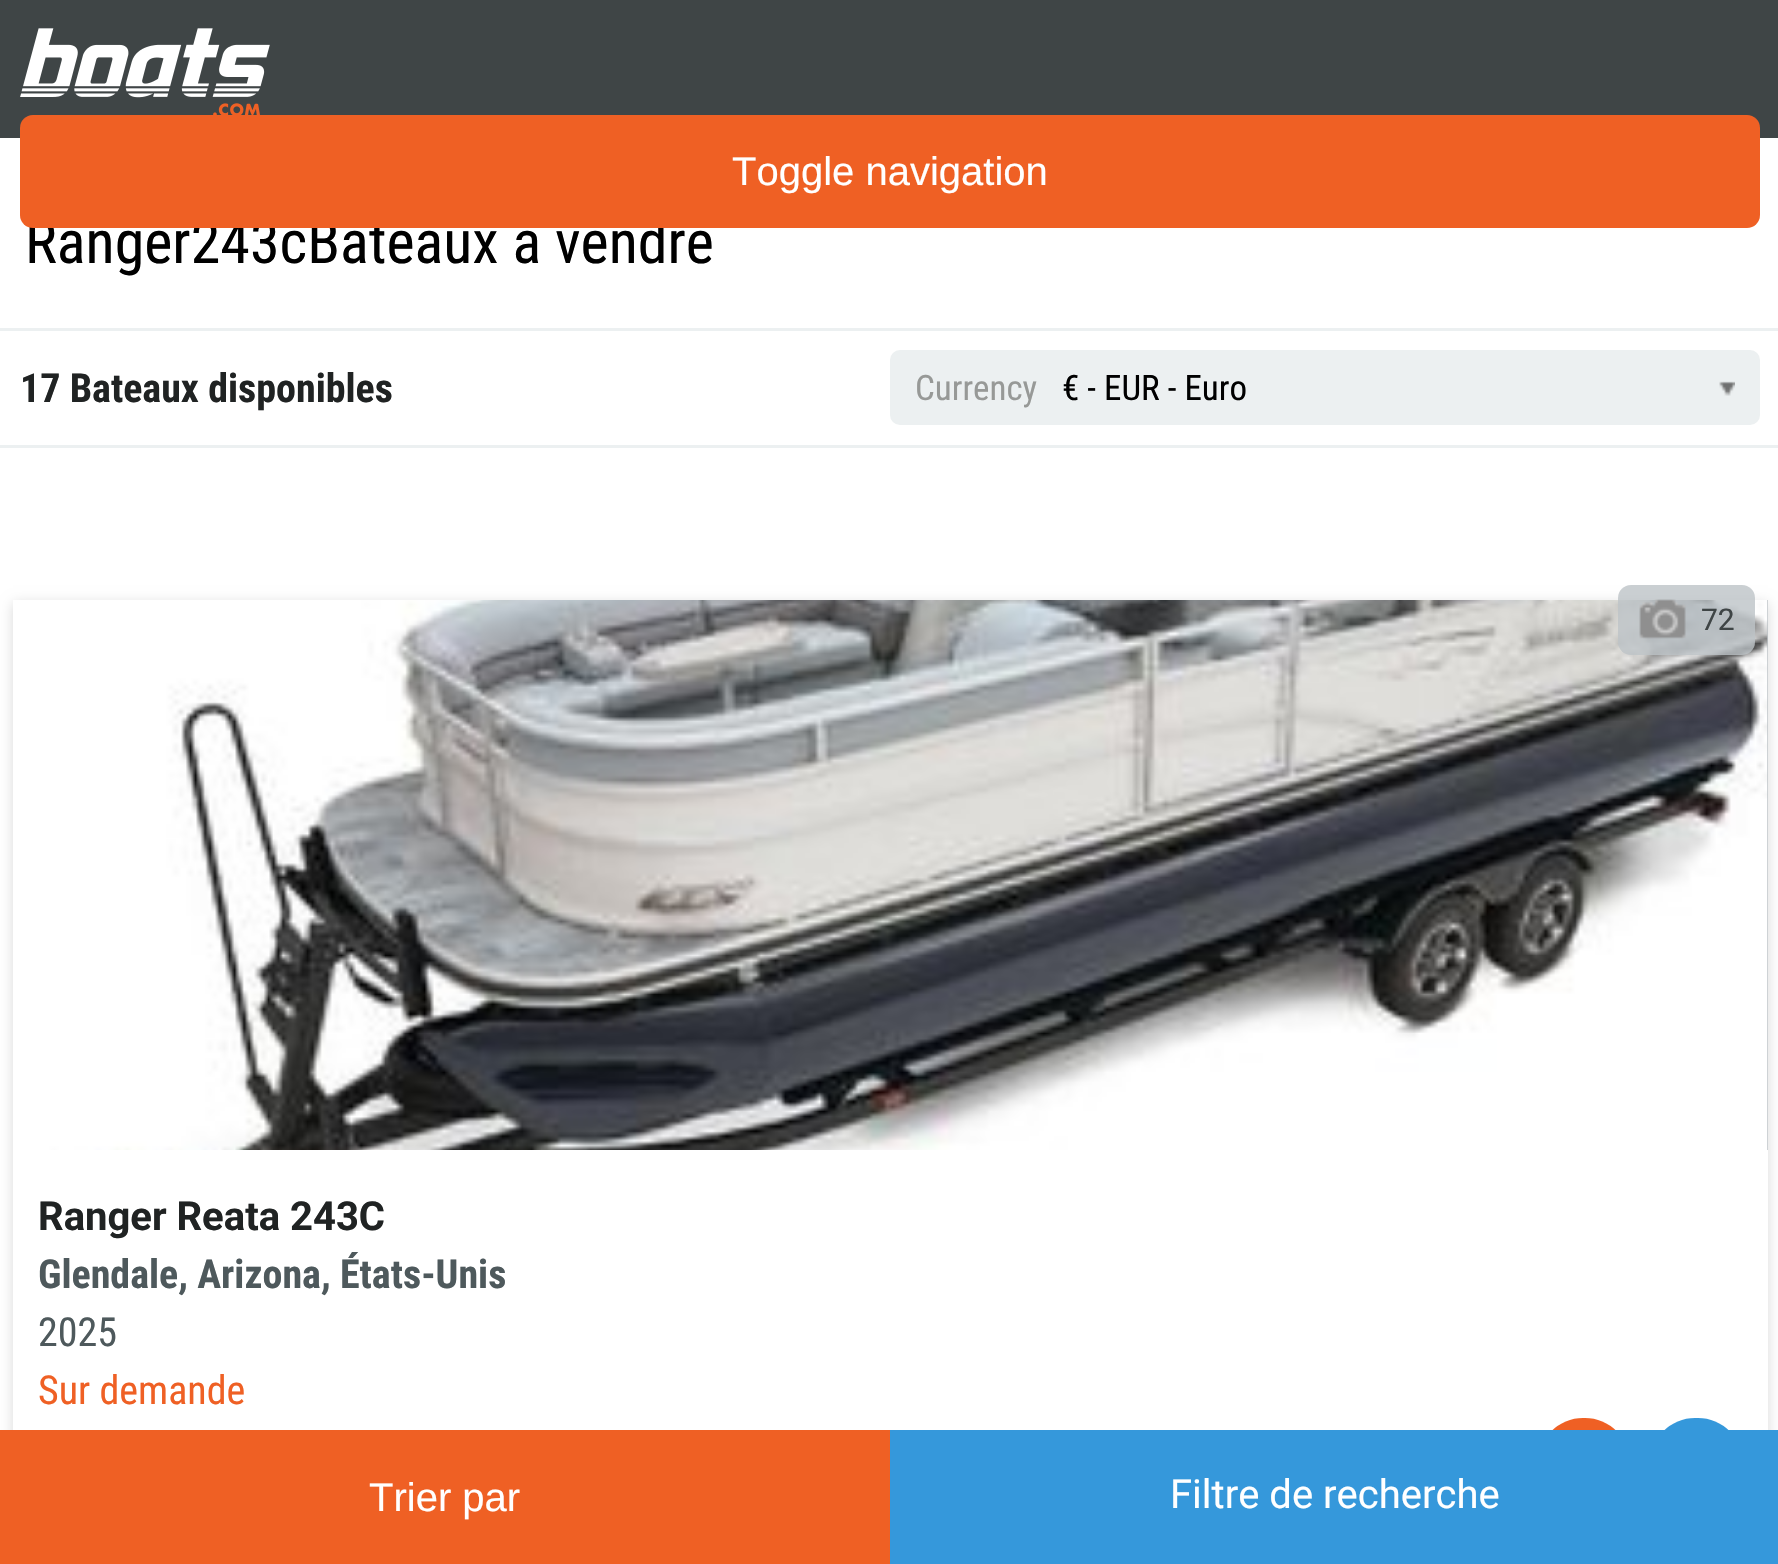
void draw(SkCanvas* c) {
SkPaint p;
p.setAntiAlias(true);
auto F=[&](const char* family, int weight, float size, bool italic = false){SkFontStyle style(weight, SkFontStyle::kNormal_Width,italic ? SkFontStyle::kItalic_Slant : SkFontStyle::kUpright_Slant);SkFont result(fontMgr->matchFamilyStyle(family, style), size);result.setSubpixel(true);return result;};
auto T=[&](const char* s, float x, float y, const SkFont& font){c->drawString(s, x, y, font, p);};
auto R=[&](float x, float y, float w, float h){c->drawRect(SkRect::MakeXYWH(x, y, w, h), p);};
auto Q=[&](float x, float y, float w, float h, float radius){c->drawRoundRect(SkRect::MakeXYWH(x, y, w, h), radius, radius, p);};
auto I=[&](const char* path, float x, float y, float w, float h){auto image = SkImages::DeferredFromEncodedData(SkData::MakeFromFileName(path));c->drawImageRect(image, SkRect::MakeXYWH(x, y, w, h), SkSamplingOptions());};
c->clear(0xffffffff);
p.setColor(0xff3f4546);
R(0,0,1778,138);
I("1.png",20,28,250,87);
auto f1 = F("Roboto Condensed",400,60);
p.setColor(0xff000000);
T("Ranger243cBateaux à vendre",25,263,f1);
p.setColor(0xffef6024);
Q(20,115,1740,113,13);
auto f2 = F("Liberation Sans",400,40);
p.setColor(0xffffffff);
T("Toggle navigation",732,185,f2);
p.setColor(0xffecf0f1);
R(0,328,1778,3);
R(0,445,1778,3);
auto f3 = F("Roboto Condensed",700,40);
p.setColor(0xff202323);
T("17 Bateaux disponibles",20,402,f3);
p.setColor(0xffecf0f1);
Q(890,350,870,75,10);
auto f4 = F("Roboto Condensed",400,35);
p.setColor(0xff979997);
T("Currency",915,400,f4);
p.setColor(0xff000000);
T("€ - EUR - Euro",1062,400,f4);
I("2.png",1719,381,16,15);
p.setColor(0x26000000);
p.setMaskFilter(SkMaskFilter::MakeBlur(kNormal_SkBlurStyle, 6));
c->drawRect(SkRect::MakeXYWH(13,603,1755,935),p);
p.setMaskFilter(nullptr);
p.setColor(0xffbdc3c7);
R(1767,600,1,550);
I("3.png",13,600,1755,550);
p.setColor(0xccbdc3c7);
Q(1618,585,137,70,13);
I("4.png",1639,599,47,40);
auto f5 = F("Roboto",400,30);
p.setColor(0xff3f4546);
T("72",1701,630,f5);
p.setColor(0xffffffff);
R(13,1150,1755,280);
auto f6 = F("Roboto",700,40);
p.setColor(0xff202323);
T("Ranger Reata 243C",38,1230,f6);
p.setColor(0xff4e595c);
T("Glendale, Arizona, États-Unis",38,1288,f3);
auto f7 = F("Roboto Condensed",400,40);
T("2025",38,1346,f7);
p.setColor(0xffef6024);
T("Sur demande",38,1404,f7);
Q(1538,1418,92,92,45);
p.setColor(0xff3598db);
Q(1650,1418,93,92,45);
p.setColor(0xffef6024);
R(0,1430,890,134);
p.setColor(0xffffffff);
T("Trier par",369,1511,f2);
p.setColor(0xff3598db);
R(890,1430,888,134);
auto f8 = F("Roboto",400,40);
p.setColor(0xffffffff);
T("Filtre de recherche",1170,1508,f8);
}
